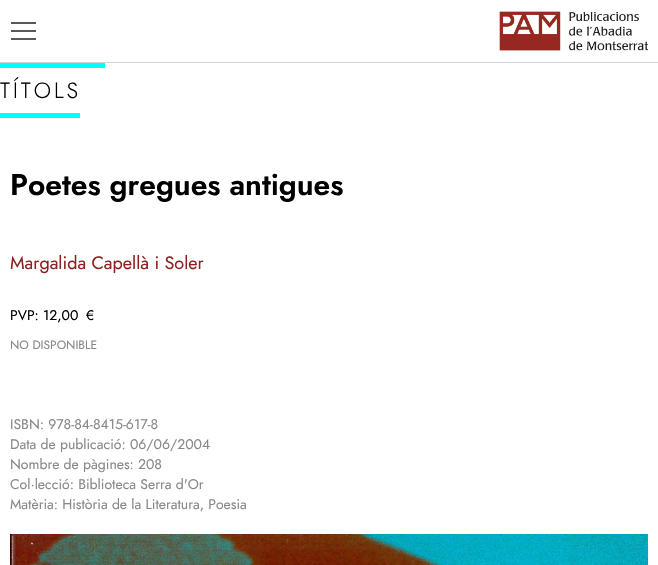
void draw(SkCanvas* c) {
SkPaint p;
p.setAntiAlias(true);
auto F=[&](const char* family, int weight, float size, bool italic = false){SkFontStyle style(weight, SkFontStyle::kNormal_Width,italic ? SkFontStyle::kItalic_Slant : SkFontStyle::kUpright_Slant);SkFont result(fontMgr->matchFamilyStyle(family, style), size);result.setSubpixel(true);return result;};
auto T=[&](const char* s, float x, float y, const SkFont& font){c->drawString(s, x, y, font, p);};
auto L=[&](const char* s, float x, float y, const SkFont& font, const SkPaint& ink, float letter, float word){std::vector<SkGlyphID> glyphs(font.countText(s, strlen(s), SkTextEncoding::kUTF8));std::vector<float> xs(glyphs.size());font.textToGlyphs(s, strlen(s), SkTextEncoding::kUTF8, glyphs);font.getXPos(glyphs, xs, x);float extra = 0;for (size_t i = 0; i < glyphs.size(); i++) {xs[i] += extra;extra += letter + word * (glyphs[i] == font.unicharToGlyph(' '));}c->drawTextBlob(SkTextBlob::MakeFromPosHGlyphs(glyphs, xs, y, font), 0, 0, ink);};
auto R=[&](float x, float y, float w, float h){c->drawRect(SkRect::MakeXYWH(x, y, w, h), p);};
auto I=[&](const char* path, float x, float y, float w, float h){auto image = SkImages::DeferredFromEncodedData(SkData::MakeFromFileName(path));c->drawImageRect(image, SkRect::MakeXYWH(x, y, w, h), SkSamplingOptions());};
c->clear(0xffffffff);
p.setColor(0xffd3d3d3);
R(0,62,658,1);
p.setColor(0xff595759);
R(11,22,25,2);
R(11,30,25,2);
R(11,38,25,2);
I("1.png",499,11,149,40);
p.setColor(0xff00ffff);
R(0,63,105,5);
auto f1 = F("Jost",300,22);
p.setColor(0xff000000);
L("TÍTOLS",0,98,f1,p,3,0);
p.setColor(0xff00ffff);
R(0,113,80,5);
auto f2 = F("Jost",600,30);
p.setColor(0xff000000);
T("Poetes gregues antigues",10,195,f2);
auto f3 = F("Jost",400,18);
p.setColor(0xff8c2020);
T("Margalida Capellà i Soler",10,269,f3);
auto f4 = F("Jost",400,14);
p.setColor(0xff000000);
T("PVP: 12,00",10,320,f4);
T("€",86,320,f4);
auto f5 = F("Jost",400,12);
p.setColor(0xff888888);
T("NO DISPONIBLE",10,349,f5);
T("ISBN: 978-84-8415-617-8",10,429,f4);
T("Data de publicació: 06/06/2004",10,449,f4);
T("Nombre de pàgines: 208",10,469,f4);
T("Col·lecció: Biblioteca Serra d'Or",10,489,f4);
T("Matèria: Història de la Literatura, Poesia",10,509,f4);
I("2.png",10,534,638,31);
}
